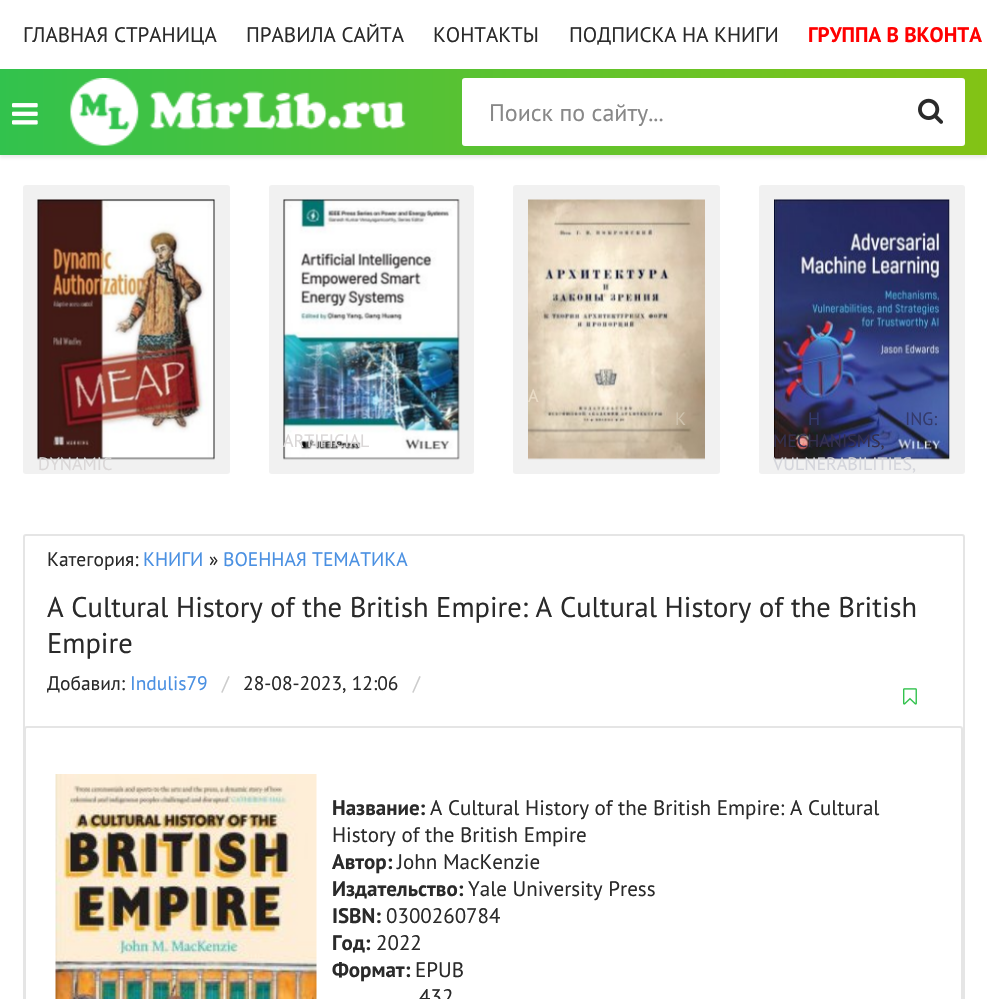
void draw(SkCanvas* c) {
SkPaint p;
p.setAntiAlias(true);
auto F=[&](const char* family, int weight, float size, bool italic = false){SkFontStyle style(weight, SkFontStyle::kNormal_Width,italic ? SkFontStyle::kItalic_Slant : SkFontStyle::kUpright_Slant);SkFont result(fontMgr->matchFamilyStyle(family, style), size);result.setSubpixel(true);return result;};
auto T=[&](const char* s, float x, float y, const SkFont& font){c->drawString(s, x, y, font, p);};
auto R=[&](float x, float y, float w, float h){c->drawRect(SkRect::MakeXYWH(x, y, w, h), p);};
auto Q=[&](float x, float y, float w, float h, float radius){c->drawRoundRect(SkRect::MakeXYWH(x, y, w, h), radius, radius, p);};
auto I=[&](const char* path, float x, float y, float w, float h){auto image = SkImages::DeferredFromEncodedData(SkData::MakeFromFileName(path));c->drawImageRect(image, SkRect::MakeXYWH(x, y, w, h), SkSamplingOptions());};
c->clear(0xffffffff);
auto f1 = F("PT Sans",400,21);
p.setColor(0xff2a2a2a);
T("ГЛАВНАЯ СТРАНИЦА",23,42,f1);
T("ПРАВИЛА САЙТА",246,42,f1);
T("КОНТАКТЫ",433,42,f1);
T("ПОДПИСКА НА КНИГИ",569,42,f1);
auto f2 = F("PT Sans",700,21);
p.setColor(0xffff0000);
T("ГРУППА В ВКОНТА",808,42,f2);
p.setColor(0x1a444444);
p.setMaskFilter(SkMaskFilter::MakeBlur(kNormal_SkBlurStyle, 1.5));
c->drawRect(SkRect::MakeXYWH(0,72,987,86),p);
p.setMaskFilter(nullptr);
{
const SkColor colors[] = {0xff32c24d,0xff83c315};
const float stops[] = {0,1};
const SkPoint ends[] = {{0,112}, {987,112}};
p.setShader(SkGradientShader::MakeLinear(ends, colors, stops, 2, SkTileMode::kClamp));
p.setAlpha(255);
}
R(0,69,987,86);
I("1.png",12,103,26,22);
I("2.png",70,78,336,68);
p.setShader(nullptr);
p.setColor(0xffffffff);
Q(462,78,503,68,3);
auto f3 = F("PT Sans",400,24);
p.setColor(0xff888888);
T("Поиск по сайту...",489,121,f3);
I("3.png",918,98,25,26);
p.setColor(0xfff1f1f1);
Q(513,185,207,289,3);
I("4.png",528,199,177,261);
auto f4 = F("PT Sans",400,18);
p.setColor(0xffeadcc6);
T("А",528,402,f4);
p.setColor(0xffcfc2ad);
T("К",675,425,f4);
p.setColor(0xfff1f1f1);
Q(269,185,205,289,3);
I("5.png",283,199,177,261);
p.setColor(0xffdad7d7);
T("ARTIFICIAL",283,447,f4);
p.setColor(0xfff1f1f1);
Q(759,185,206,289,3);
I("6.png",774,199,176,261);
p.setColor(0xff333a6c);
T("H",808,425,f4);
T("ING:",905,425,f4);
p.setColor(0xff34304e);
T("MECHANISMS,",773,447,f4);
p.setColor(0xffd4d5db);
T("VULNERABILITIES,",773,470,f4);
p.setColor(0xfff1f1f1);
Q(23,185,207,289,3);
I("7.png",37,199,178,261);
p.setColor(0xffdad7d7);
T("DYNAMIC",38,470,f4);
p.setStroke(true);
p.setStrokeWidth(2);
p.setColor(0xffe5e5e5);
c->drawRoundRect(SkRect::MakeXYWH(24,535,940,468),2,2,p);
auto f5 = F("PT Sans",400,19.5);
p.setStroke(false);
p.setColor(0xff2a2a2a);
T("Категория:",47,566,f5);
p.setColor(0xff4a90e2);
T("КНИГИ",143,566,f5);
p.setColor(0xff2a2a2a);
T("»",209,566,f5);
p.setColor(0xff4a90e2);
T("ВОЕННАЯ ТЕМАТИКА",223,566,f5);
auto f6 = F("PT Sans",400,28.5);
p.setColor(0xff2a2a2a);
T("A Cultural History of the British Empire: A Cultural History of the British",47,617,f6);
T("Empire",47,653,f6);
T("Добавил:",47,690,f5);
p.setColor(0xff4a90e2);
T("Indulis79",130,690,f5);
p.setColor(0xffcccccc);
T("/",222,690,f5);
p.setColor(0xff2a2a2a);
T("28-08-2023, 12:06",243,690,f5);
p.setColor(0xffcccccc);
T("/",413,690,f5);
I("8.png",903,688,14,17);
p.setStroke(true);
p.setColor(0xffe5e5e5);
c->drawRoundRect(SkRect::MakeXYWH(25,727,937,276),2,2,p);
I("9.png",55,774,262,225);
p.setStroke(false);
p.setColor(0xff2a2a2a);
T("Название:",332,815,f2);
T("A Cultural History of the British Empire: A Cultural",430,815,f1);
T("History of the British Empire",332,842,f1);
T("Автор:",332,869,f2);
T("John MacKenzie",397,869,f1);
T("Издательство:",332,896,f2);
T("Yale University Press",468,896,f1);
T("ISBN:",332,923,f2);
T("0300260784",386,923,f1);
T("Год:",332,950,f2);
T("2022",376,950,f1);
T("Формат:",332,977,f2);
T("EPUB",415,977,f1);
T("432",419,1004,f1);
}
